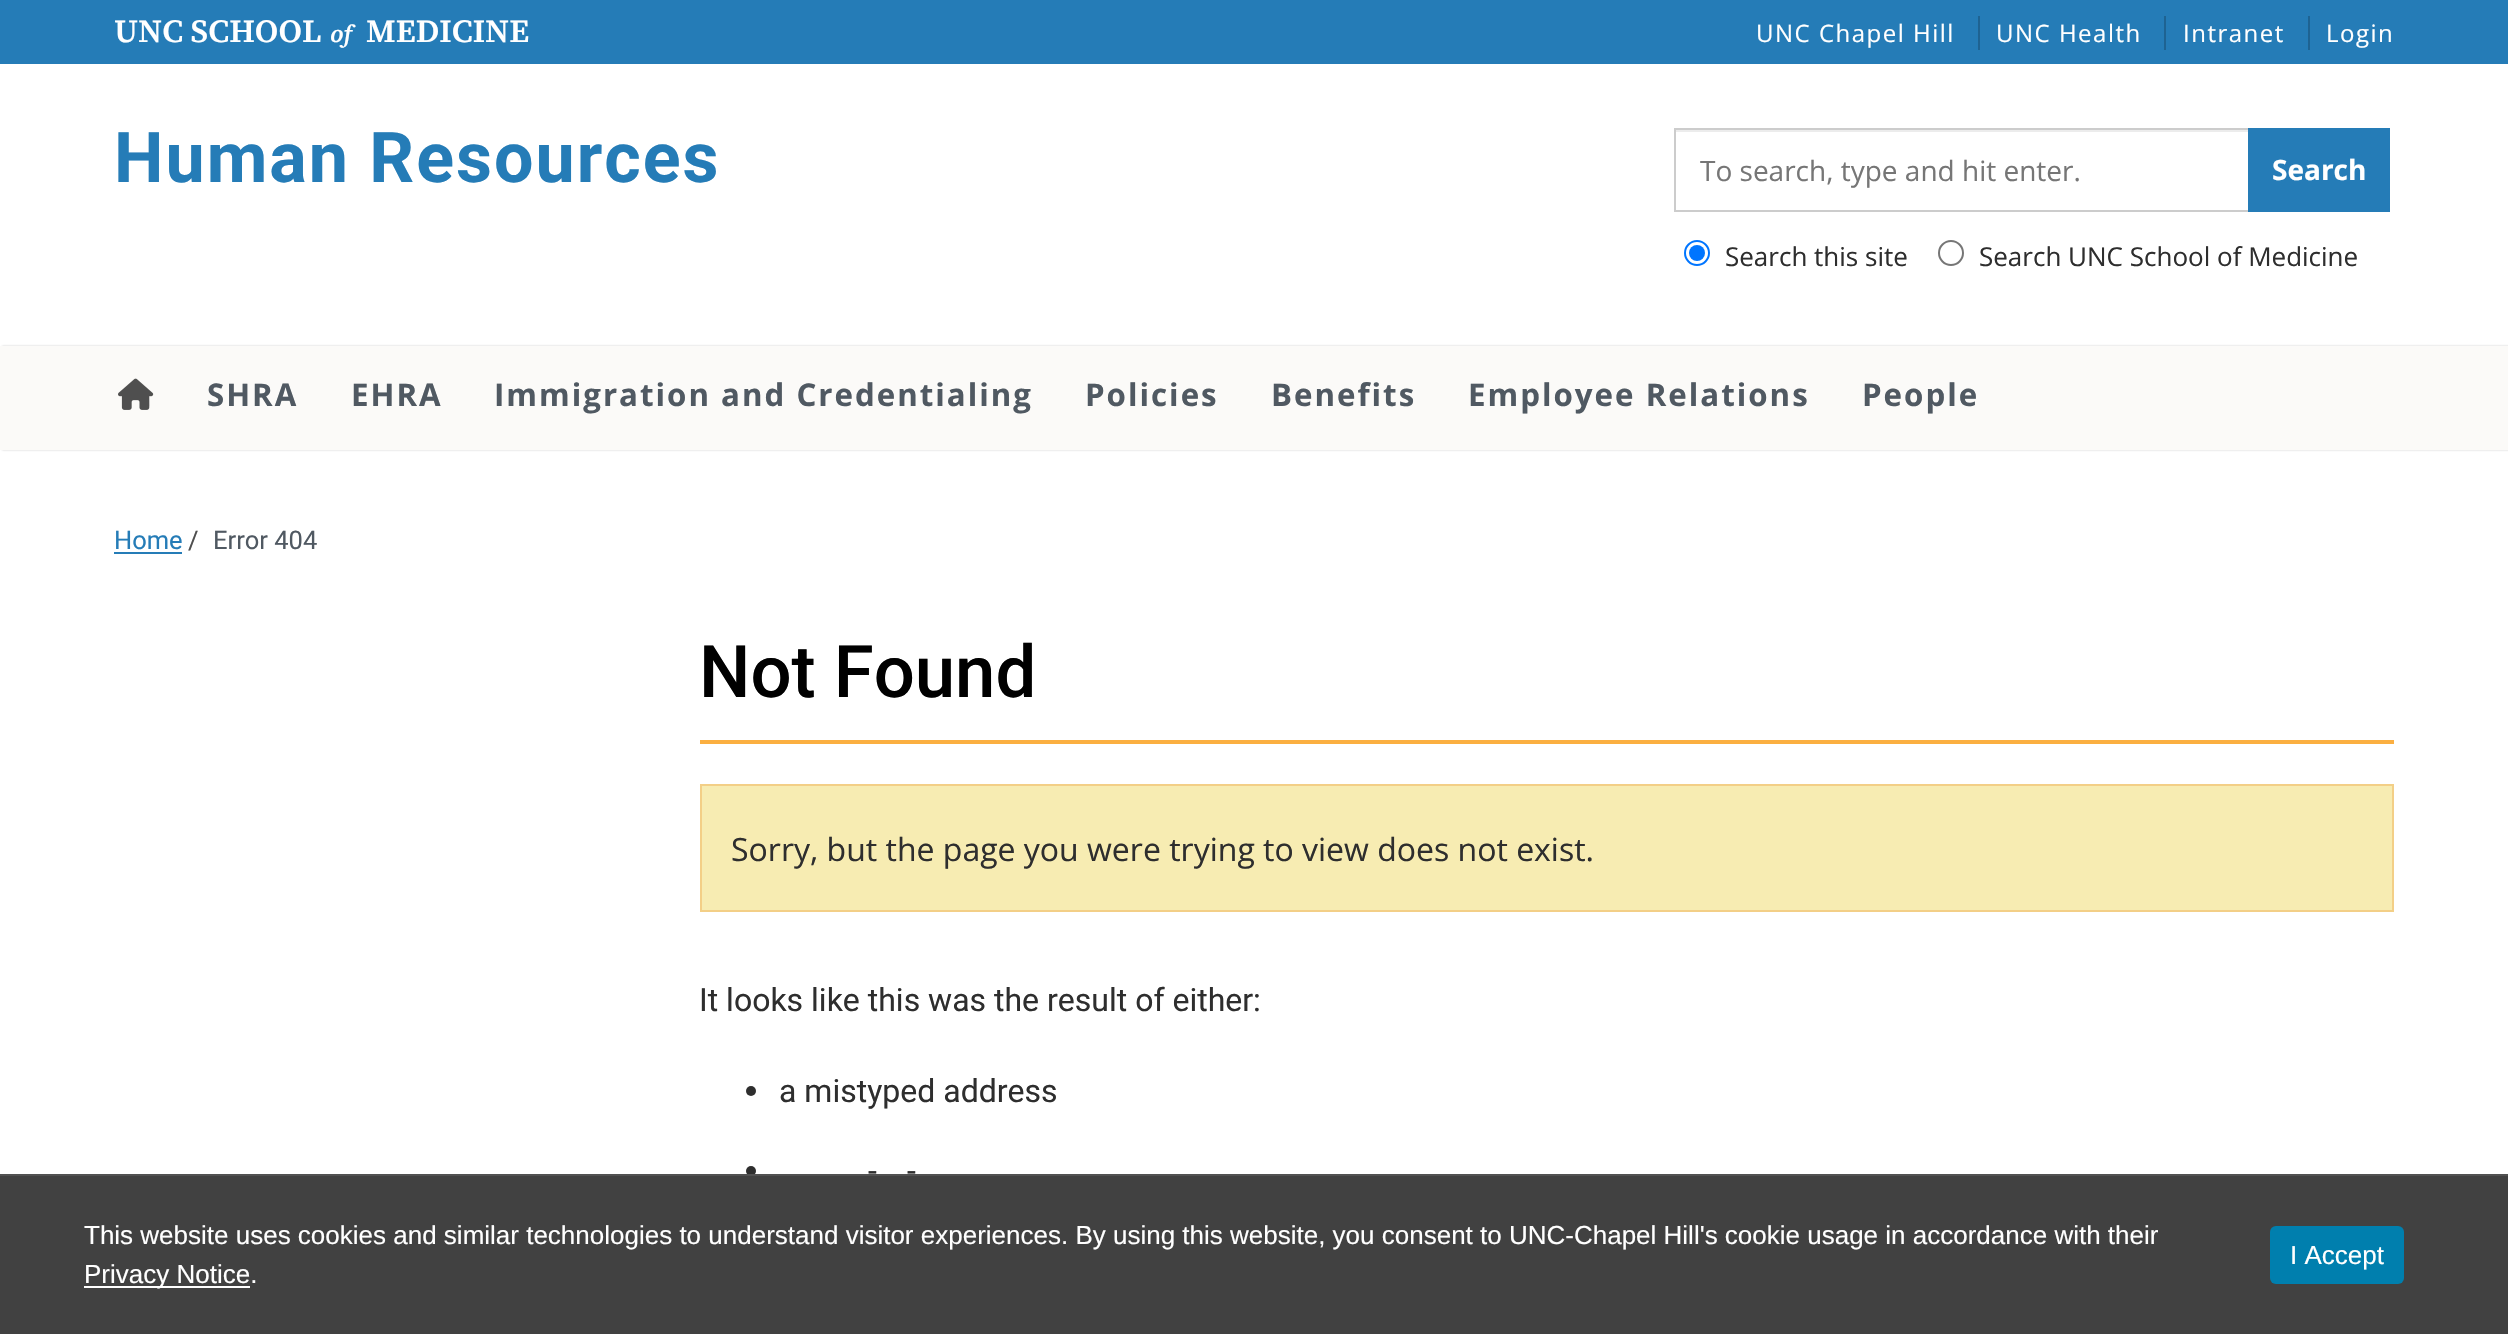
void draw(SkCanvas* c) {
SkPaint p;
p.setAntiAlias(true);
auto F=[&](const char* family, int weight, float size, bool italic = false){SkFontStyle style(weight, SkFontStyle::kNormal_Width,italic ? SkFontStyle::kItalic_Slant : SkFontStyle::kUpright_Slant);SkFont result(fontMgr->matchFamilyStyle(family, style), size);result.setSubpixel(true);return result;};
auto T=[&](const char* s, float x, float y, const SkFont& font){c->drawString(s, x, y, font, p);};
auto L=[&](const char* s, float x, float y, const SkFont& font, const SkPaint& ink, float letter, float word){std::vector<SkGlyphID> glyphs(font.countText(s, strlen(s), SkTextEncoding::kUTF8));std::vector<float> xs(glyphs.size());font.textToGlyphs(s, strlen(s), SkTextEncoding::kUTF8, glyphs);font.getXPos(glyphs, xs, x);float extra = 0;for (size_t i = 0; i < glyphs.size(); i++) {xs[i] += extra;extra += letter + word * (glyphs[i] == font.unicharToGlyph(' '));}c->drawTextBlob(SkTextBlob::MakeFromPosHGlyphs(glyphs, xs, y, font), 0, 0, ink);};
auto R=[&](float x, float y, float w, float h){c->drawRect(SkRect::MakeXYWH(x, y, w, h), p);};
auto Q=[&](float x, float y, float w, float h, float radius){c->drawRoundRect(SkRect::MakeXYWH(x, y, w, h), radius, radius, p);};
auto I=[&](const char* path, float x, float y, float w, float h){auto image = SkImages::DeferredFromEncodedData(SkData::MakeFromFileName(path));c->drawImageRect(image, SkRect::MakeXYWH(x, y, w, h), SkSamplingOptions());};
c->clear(0xffffffff);
p.setColor(0xff257cb7);
R(0,0,2508,64);
auto f1 = F("Source Serif 4",600,32.25);
p.setColor(0xffffffff);
T("UNC SCHOOL",114,42,f1);
auto f2 = F("Source Serif 4",600,24,true);
T("of",330,42,f2);
T("MEDICINE",366,42,f1);
auto f3 = F("Open Sans",400,24);
L("UNC Chapel Hill",1756,42,f3,p,1.5,0);
p.setColor(0xff1e6392);
R(1978,16,2,34);
p.setColor(0xffffffff);
L("UNC Health",1996,42,f3,p,1.5,0);
p.setColor(0xff1e6392);
R(2164,16,2,34);
p.setColor(0xffffffff);
L("Intranet",2183,42,f3,p,1.5,0);
p.setColor(0xff1e6392);
R(2308,16,2,34);
p.setColor(0xffffffff);
L("Login",2326,42,f3,p,1.5,0);
auto f4 = F("Roboto",700,70);
p.setColor(0xff257cb7);
L("Human Resources",114,182,f4,p,2,0);
p.setColor(0xffececec);
R(1676,130,572,2);
p.setStroke(true);
p.setStrokeWidth(2);
p.setColor(0xffcccccc);
c->drawRect(SkRect::MakeXYWH(1675,129,574,82),p);
auto f5 = F("Open Sans",400,28);
p.setStroke(false);
p.setColor(0xff767676);
T("To search, type and hit enter.",1700,181,f5);
p.setColor(0xff257cb7);
R(2248,128,142,84);
auto f6 = F("Open Sans",700,28);
p.setColor(0xffffffff);
T("Search",2272,180,f6);
p.setStroke(true);
p.setColor(0xff0075ff);
c->drawCircle(1697,253,12,p);
p.setStroke(false);
c->drawCircle(1697,253,8,p);
auto f7 = F("Open Sans",400,26);
p.setColor(0xff2e2e2e);
T("Search this site",1725,266,f7);
p.setStroke(true);
p.setColor(0xff767676);
c->drawCircle(1951,253,12,p);
p.setStroke(false);
p.setColor(0xff2e2e2e);
T("Search UNC School of Medicine",1979,266,f7);
p.setColor(0xbfbdbdbd);
p.setMaskFilter(SkMaskFilter::MakeBlur(kNormal_SkBlurStyle, 1));
c->drawRect(SkRect::MakeXYWH(2,346,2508,104),p);
p.setMaskFilter(nullptr);
p.setColor(0xfffbfaf8);
R(0,346,2508,104);
I("1.png",118,378,36,32);
auto f8 = F("Open Sans",700,31.25);
p.setColor(0xff505962);
L("SHRA",207,406,f8,p,2,0);
L("EHRA",351,406,f8,p,2,0);
L("Immigration and Credentialing",494,406,f8,p,2,0);
L("Policies",1085,406,f8,p,2,0);
L("Benefits",1271,406,f8,p,2,0);
L("Employee Relations",1468,406,f8,p,2,0);
L("People",1862,406,f8,p,2,0);
auto f9 = F("Roboto",400,25.5);
p.setColor(0xff257cb7);
T("Home",114,549,f9);
R(114,552,68,2);
p.setColor(0xff4f4f4f);
T("/",188,549,f9);
p.setColor(0xff505962);
T("Error 404",213,549,f9);
p.setColor(0xfffbaf41);
R(700,740,1694,4);
auto f10 = F("Roboto",500,72.5);
p.setColor(0xff000000);
T("Not Found",699,697,f10);
p.setColor(0xfff7ecb2);
c->drawRect(SkRect::MakeXYWH(701,785,1692,126),p);
p.setStroke(true);
p.setColor(0xfff3cf87);
c->drawRect(SkRect::MakeXYWH(701,785,1692,126),p);
auto f11 = F("Open Sans",400,32);
p.setStroke(false);
p.setColor(0xff2e2e2e);
T("Sorry, but the page you were trying to view does not exist.",731,861,f11);
auto f12 = F("Roboto",400,32);
T("It looks like this was the result of either:",699,1011,f12);
c->drawCircle(751,1091,5,p);
T("a mistyped address",779,1102,f12);
c->drawCircle(751,1171,5,p);
T("-",868,1182,f12);
T("-",907,1182,f12);
p.setColor(0xff414141);
R(0,1176,2508,158);
p.setColor(0xff515151);
R(0,1174,2508,2);
auto f13 = F("Liberation Sans",400,26);
p.setColor(0xffffffff);
T("This website uses cookies and similar technologies to understand visitor experiences. By using this website, you consent to UNC-Chapel Hill's cookie usage in accordance with their",84,1244,f13);
R(84,1286,166,2);
T("Privacy Notice.",84,1283,f13);
p.setColor(0xff007fae);
Q(2270,1226,134,58,6);
p.setColor(0xffffffff);
T("I Accept",2290,1264,f13);
}
